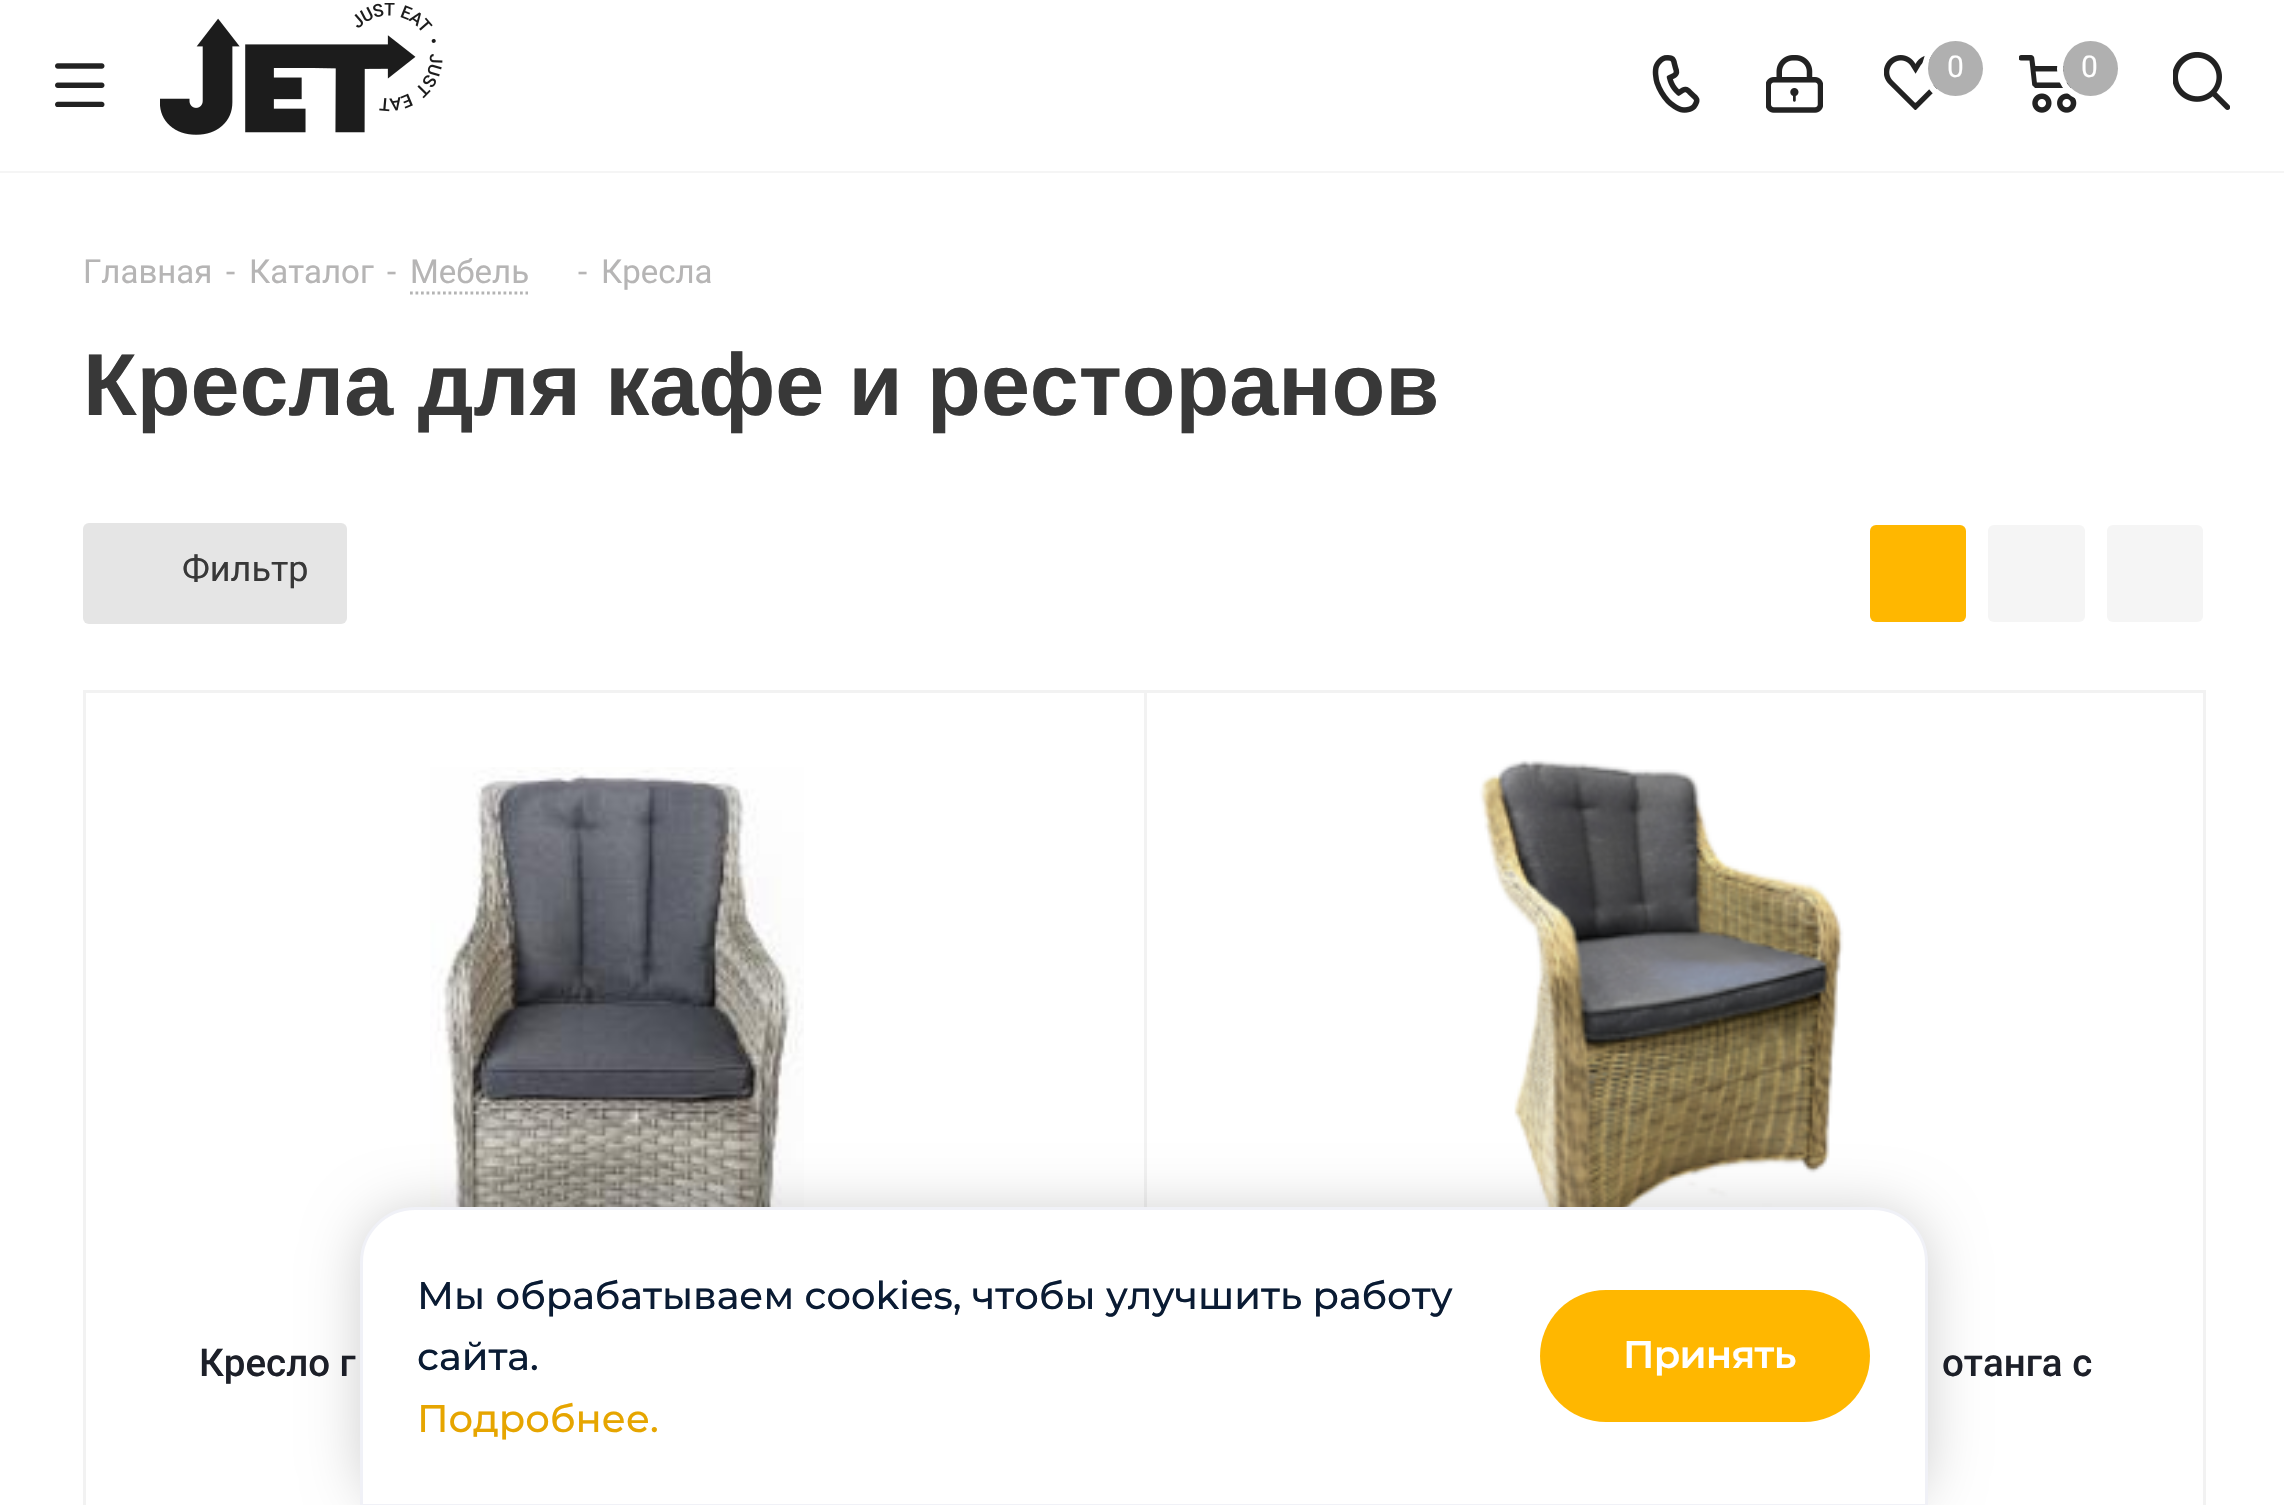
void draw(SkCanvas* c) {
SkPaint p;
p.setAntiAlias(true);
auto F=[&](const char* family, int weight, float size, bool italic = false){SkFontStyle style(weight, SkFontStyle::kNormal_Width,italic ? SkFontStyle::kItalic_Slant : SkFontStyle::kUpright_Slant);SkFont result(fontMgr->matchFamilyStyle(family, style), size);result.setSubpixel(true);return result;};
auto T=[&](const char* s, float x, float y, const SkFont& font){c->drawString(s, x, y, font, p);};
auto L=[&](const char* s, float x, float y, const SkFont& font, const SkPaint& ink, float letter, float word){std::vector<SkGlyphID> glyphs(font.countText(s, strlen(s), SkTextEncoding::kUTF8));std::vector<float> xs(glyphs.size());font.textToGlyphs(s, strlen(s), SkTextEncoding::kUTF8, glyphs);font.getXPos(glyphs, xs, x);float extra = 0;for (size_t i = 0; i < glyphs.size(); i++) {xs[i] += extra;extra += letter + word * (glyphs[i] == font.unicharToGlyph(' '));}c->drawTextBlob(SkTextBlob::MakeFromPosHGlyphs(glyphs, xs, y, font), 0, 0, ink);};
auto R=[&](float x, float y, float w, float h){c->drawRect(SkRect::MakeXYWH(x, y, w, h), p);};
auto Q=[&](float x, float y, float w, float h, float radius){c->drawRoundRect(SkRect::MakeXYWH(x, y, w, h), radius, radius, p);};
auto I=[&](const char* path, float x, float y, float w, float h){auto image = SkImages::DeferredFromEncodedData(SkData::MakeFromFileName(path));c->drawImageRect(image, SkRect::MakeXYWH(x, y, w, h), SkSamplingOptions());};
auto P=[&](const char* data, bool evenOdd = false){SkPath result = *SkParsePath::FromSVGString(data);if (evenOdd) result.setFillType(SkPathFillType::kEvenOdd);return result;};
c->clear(0xffffffff);
p.setColor(0xfff5f5f5);
R(0,171,2284,2);
I("1.png",55,63,50,44);
I("2.png",160,3,283,132);
I("3.png",1652,55,48,58);
I("4.png",1766,55,57,58);
I("5.png",1884,55,54,55);
p.setStroke(true);
p.setStrokeWidth(6);
p.setColor(0xffffffff);
c->drawCircle(1955,69,30,p);
p.setStroke(false);
p.setColor(0xffb0b0b0);
c->drawCircle(1955.5,68.5,27.5,p);
auto f1 = F("Roboto",400,30);
p.setColor(0xffffffff);
T("0",1947,77,f1);
I("6.png",2019,55,58,58);
p.setStroke(true);
c->drawCircle(2090,69,30,p);
p.setStroke(false);
p.setColor(0xffb0b0b0);
c->drawCircle(2090.5,68.5,27.5,p);
p.setColor(0xffffffff);
T("0",2081,77,f1);
I("7.png",2173,52,57,58);
auto f2 = F("Roboto",400,33);
p.setColor(0xffb6b5b5);
T("Главная",83,283,f2);
T("-",226,283,f2);
T("Каталог",249,283,f2);
T("-",387,283,f2);
T("Мебель",410,283,f2);
p.setStroke(true);
p.setStrokeWidth(2.8);
p.setColor(0xffb4b4b4);
p.setPathEffect(SkDashPathEffect::Make({{2.75f,2.75f}}, 0));
c->drawPath(P("M410 293h118"),p);
p.setPathEffect(nullptr);
p.setStroke(false);
p.setColor(0xffb6b5b5);
T("-",578,283,f2);
T("Кресла",601,283,f2);
auto f3 = F("Liberation Sans",700,88);
p.setColor(0xff383838);
T("Кресла для кафе и ресторанов",83,415,f3);
p.setColor(0xffe5e5e5);
Q(83,523,264,101,6);
auto f4 = F("Roboto",400,36);
p.setColor(0xff383838);
T("Фильтр",182,581,f4);
p.setColor(0xffffb700);
Q(1870,525,96,97,6);
p.setColor(0xfff5f5f5);
Q(1988,525,97,97,6);
Q(2107,525,96,97,6);
p.setStroke(true);
p.setStrokeWidth(3);
p.setColor(0xfff2f2f2);
c->drawRect(SkRect::MakeXYWH(84.5,691.5,1061,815),p);
I("8.png",430,767,374,440);
auto f5 = F("Roboto",500,38.5);
p.setStroke(false);
p.setColor(0xff1d2029);
T("Кресло г",199,1376,f5);
p.setStroke(true);
p.setColor(0xfff2f2f2);
c->drawRect(SkRect::MakeXYWH(1145.5,691.5,1059,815),p);
I("9.png",1479,759,365,448);
p.setStroke(false);
p.setColor(0xff1d2029);
T("отанга с",1942,1376,f5);
p.setColor(0x30000000);
p.setMaskFilter(SkMaskFilter::MakeBlur(kNormal_SkBlurStyle, 27.5));
c->drawRoundRect(SkRect::MakeXYWH(360,1210,1568,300),55,55,p);
p.setMaskFilter(nullptr);
p.setColor(0xffffffff);
c->drawPath(P("M415 1208.5h1458c29.5 0 53.5 24 53.5 53.5v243.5h-1565v-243.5c0-29.5 24-53.5 53.5-53.5z"),p);
p.setStroke(true);
p.setColor(0xfff0f1f7);
c->drawPath(P("M415 1208.5h1458c29.5 0 53.5 24 53.5 53.5v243.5h-1565v-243.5c0-29.5 24-53.5 53.5-53.5z"),p);
auto f6 = F("Montserrat",500,38.5);
p.setStroke(false);
p.setColor(0xff0a1b33);
T("Мы обрабатываем cookies, чтобы улучшить работу",417,1309,f6);
T("сайта.",417,1370,f6);
p.setColor(0xffe6a500);
T("Подробнее.",417,1432,f6);
p.setColor(0xffffb700);
Q(1540,1290,330,132,66);
auto f7 = F("Montserrat",600,38.5);
p.setColor(0xffffffff);
L("Принять",1623,1368,f7,p,-.75,0);
}
